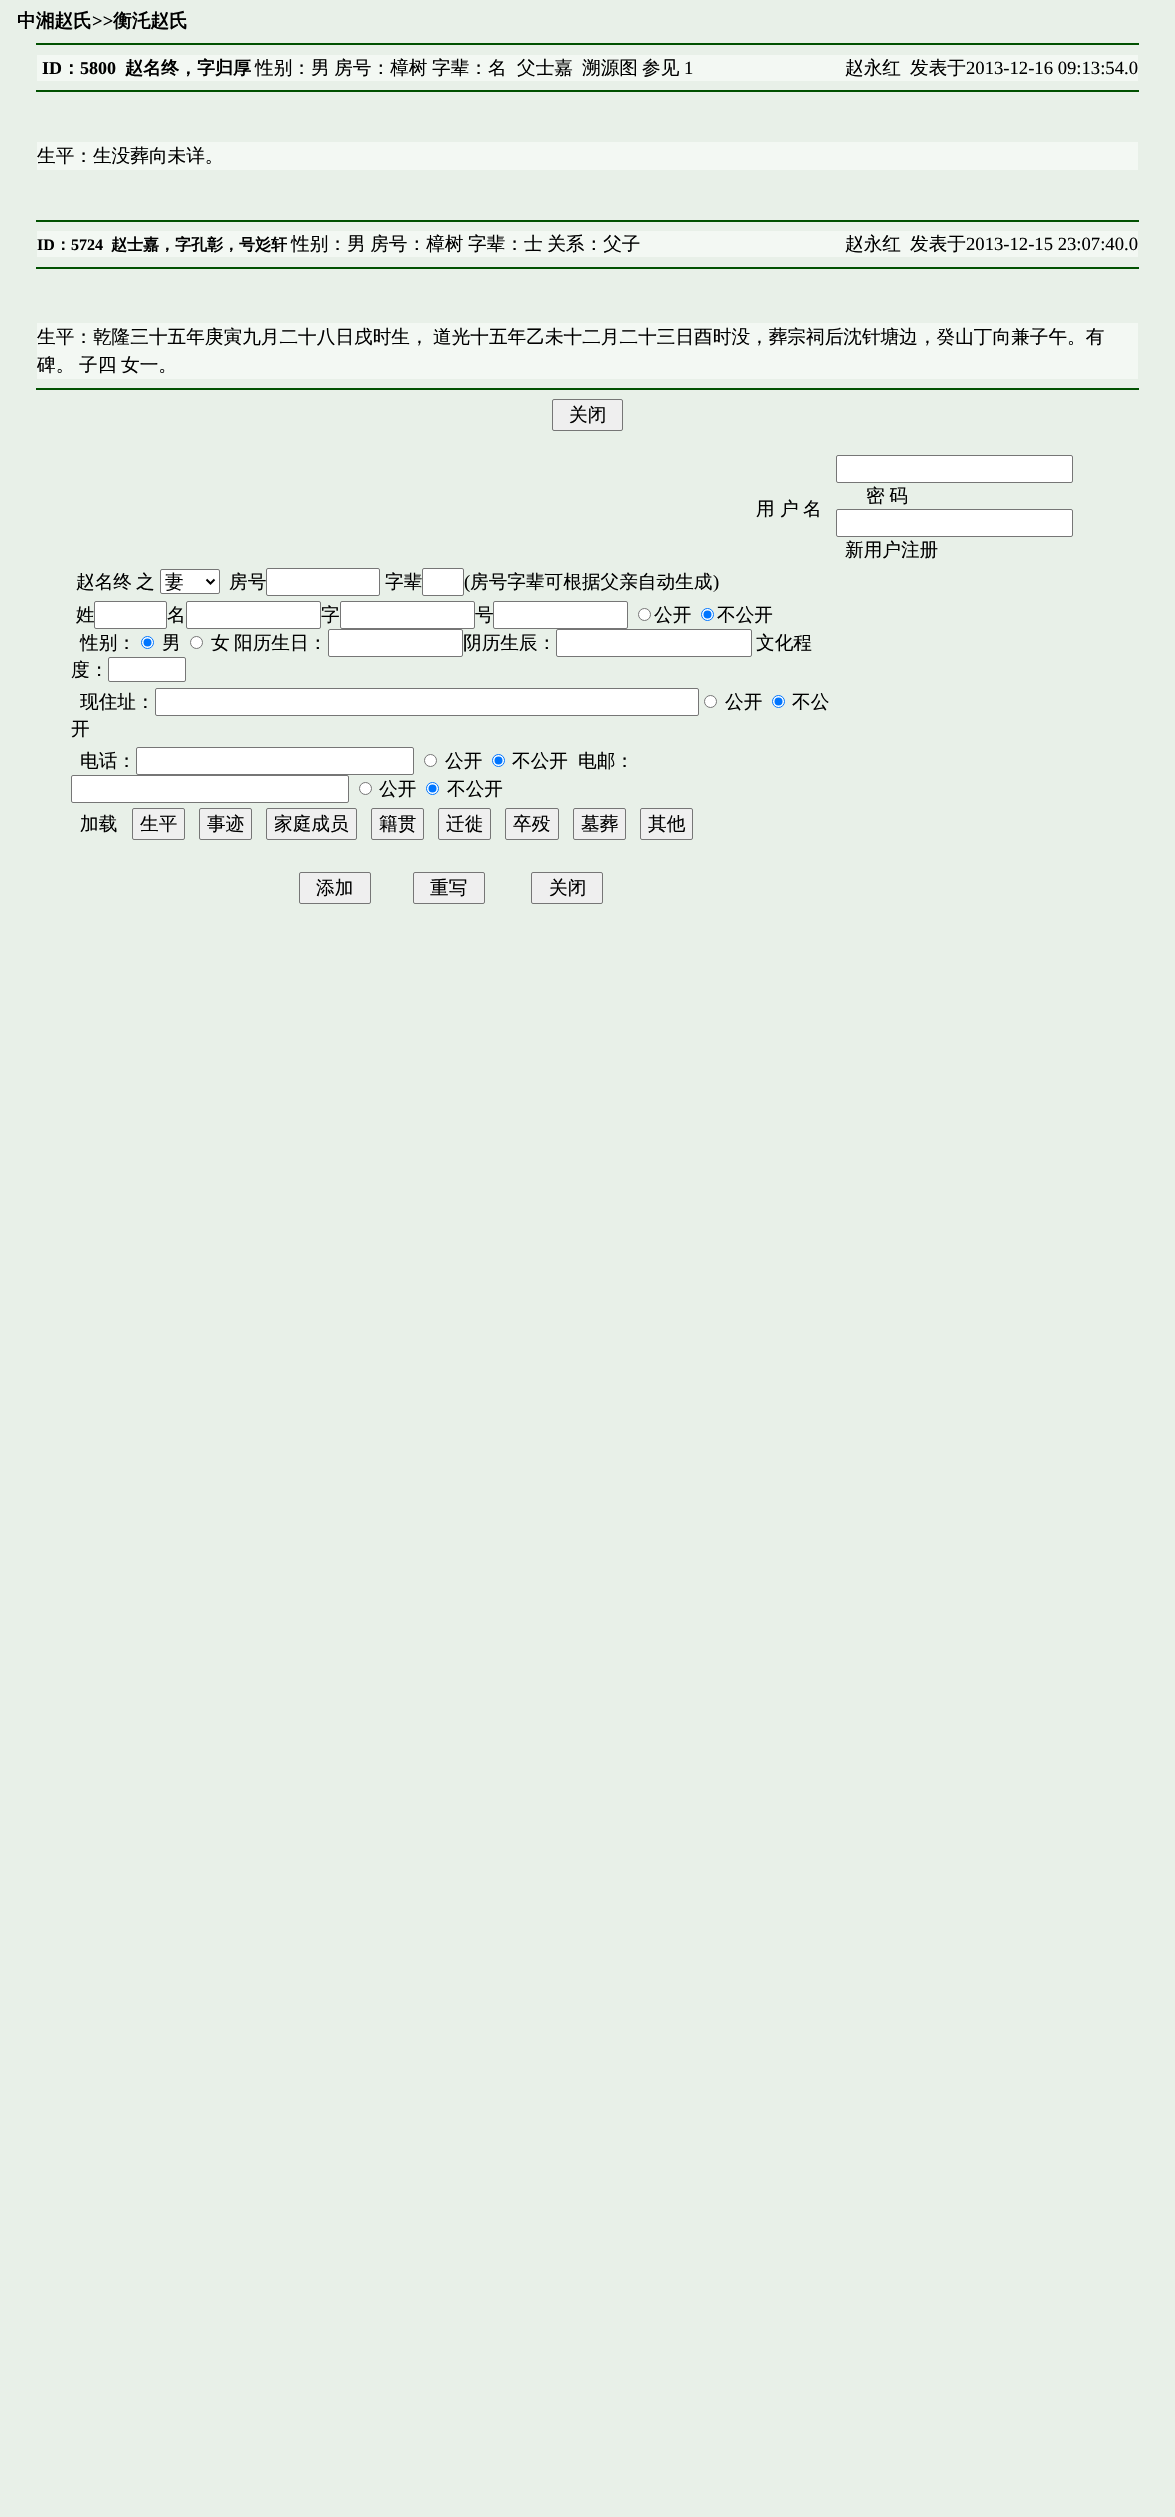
void draw(SkCanvas* c) {
SkPaint p;
p.setAntiAlias(true);
auto F=[&](const char* family, int weight, float size, bool italic = false){SkFontStyle style(weight, SkFontStyle::kNormal_Width,italic ? SkFontStyle::kItalic_Slant : SkFontStyle::kUpright_Slant);SkFont result(fontMgr->matchFamilyStyle(family, style), size);result.setSubpixel(true);return result;};
auto T=[&](const char* s, float x, float y, const SkFont& font){c->drawString(s, x, y, font, p);};
auto L=[&](const char* s, float x, float y, const SkFont& font, const SkPaint& ink, float letter, float word){std::vector<SkGlyphID> glyphs(font.countText(s, strlen(s), SkTextEncoding::kUTF8));std::vector<float> xs(glyphs.size());font.textToGlyphs(s, strlen(s), SkTextEncoding::kUTF8, glyphs);font.getXPos(glyphs, xs, x);float extra = 0;for (size_t i = 0; i < glyphs.size(); i++) {xs[i] += extra;extra += letter + word * (glyphs[i] == font.unicharToGlyph(' '));}c->drawTextBlob(SkTextBlob::MakeFromPosHGlyphs(glyphs, xs, y, font), 0, 0, ink);};
auto R=[&](float x, float y, float w, float h){c->drawRect(SkRect::MakeXYWH(x, y, w, h), p);};
auto P=[&](const char* data, bool evenOdd = false){SkPath result = *SkParsePath::FromSVGString(data);if (evenOdd) result.setFillType(SkPathFillType::kEvenOdd);return result;};
c->clear(0xffe8f0e8);
auto f1 = F("WenQuanYi Zen Hei",700,18.65);
p.setColor(0xff000000);
T("中湘赵氏",17,27,f1);
auto f2 = F("Liberation Serif",700,18.65);
T(">>",92,27,f2);
T("衡汑赵氏",113,27,f1);
p.setColor(0xff005100);
R(36,43,1103,2);
p.setColor(0xfff3f8f3);
R(37,55,1101,26);
auto f3 = F("Liberation Serif",700,18);
p.setColor(0xff000000);
T("ID",42,74,f3);
auto f4 = F("WenQuanYi Zen Hei",700,18);
T("：",62,74,f4);
T("5800",80,74,f3);
T("赵名终，字归厚",125,74,f4);
auto f5 = F("WenQuanYi Zen Hei",500,18.65);
L("性别：男 房号：樟树 字辈：名",255,74,f5,p,0,-1);
T("父士嘉",517,74,f5);
T("溯源图",582,74,f5);
T("参见",642,74,f5);
auto f6 = F("Liberation Serif",400,18.65);
T("1",684,74,f6);
T("赵永红",845,74,f5);
T("发表于",910,74,f5);
T("2013-12-16 09:13:54.0",966,74,f6);
p.setColor(0xff005100);
R(36,90,1103,2);
p.setColor(0xfff3f8f3);
R(37,142,1101,28);
p.setColor(0xff000000);
T("生平：生没葬向未详。",37,162,f5);
p.setColor(0xff005100);
R(36,220,1103,2);
p.setColor(0xfff3f8f3);
R(37,231,1101,26);
auto f7 = F("Liberation Serif",700,16);
p.setColor(0xff000000);
T("ID",37,250,f7);
auto f8 = F("WenQuanYi Zen Hei",700,16);
T("：",55,250,f8);
T("5724",71,250,f7);
T("赵士嘉，字孔彰，号彣轩",111,250,f8);
L("性别：男 房号：樟树 字辈：士 关系：父子",291,250,f5,p,0,-1);
T("赵永红",845,250,f5);
T("发表于",910,250,f5);
T("2013-12-15 23:07:40.0",966,250,f6);
p.setColor(0xff005100);
R(36,267,1103,2);
p.setColor(0xfff3f8f3);
R(37,323,1101,56);
p.setColor(0xff000000);
T("生平：乾隆三十五年庚寅九月二十八日戌时生，",37,343,f5);
T("道光十五年乙未十二月二十三日酉时没，葬宗祠后沈针塘边，癸山丁向兼子午。有",433,343,f5);
T("碑。",37,371,f5);
T("子四",79,371,f5);
T("女一。",121,371,f5);
p.setColor(0xff005100);
R(36,388,1103,2);
p.setColor(0xffefefef);
c->drawRoundRect(SkRect::MakeXYWH(552.5,399.5,70,31),1.5,1.5,p);
p.setStroke(true);
p.setStrokeWidth(1);
p.setColor(0xff767676);
c->drawRoundRect(SkRect::MakeXYWH(552.5,399.5,70,31),1.5,1.5,p);
p.setStroke(false);
p.setColor(0xff000000);
T("关闭",569,421,f5);
T("用",756,515,f5);
T("户",780,515,f5);
T("名",803,515,f5);
p.setColor(0xffffffff);
c->drawRoundRect(SkRect::MakeXYWH(836.5,455.5,236,27),1.5,1.5,p);
p.setStroke(true);
p.setColor(0xff767676);
c->drawRoundRect(SkRect::MakeXYWH(836.5,455.5,236,27),1.5,1.5,p);
p.setStroke(false);
p.setColor(0xff000000);
L("密 码",866,502,f5,p,0,-1);
p.setColor(0xffffffff);
c->drawRoundRect(SkRect::MakeXYWH(836.5,509.5,236,27),1.5,1.5,p);
p.setStroke(true);
p.setColor(0xff767676);
c->drawRoundRect(SkRect::MakeXYWH(836.5,509.5,236,27),1.5,1.5,p);
p.setStroke(false);
p.setColor(0xff000000);
T("新用户注册",845,556,f5);
T("赵名终",76,588,f5);
T("之",136,588,f5);
p.setColor(0xffffffff);
c->drawRoundRect(SkRect::MakeXYWH(160.5,569.5,59,24),1.5,1.5,p);
p.setStroke(true);
p.setColor(0xff767676);
c->drawRoundRect(SkRect::MakeXYWH(160.5,569.5,59,24),1.5,1.5,p);
p.setStrokeWidth(2);
p.setColor(0xff000000);
c->drawPath(P("M206.5 579.5l4 4l4-4"),p);
p.setStroke(false);
T("妻",165,588,f5);
T("房号",229,588,f5);
p.setColor(0xffffffff);
c->drawRoundRect(SkRect::MakeXYWH(266.5,568.5,113,27),1.5,1.5,p);
p.setStroke(true);
p.setStrokeWidth(1);
p.setColor(0xff767676);
c->drawRoundRect(SkRect::MakeXYWH(266.5,568.5,113,27),1.5,1.5,p);
p.setStroke(false);
p.setColor(0xff000000);
T("字辈",385,588,f5);
p.setColor(0xffffffff);
c->drawRoundRect(SkRect::MakeXYWH(422.5,568.5,41,27),1.5,1.5,p);
p.setStroke(true);
p.setColor(0xff767676);
c->drawRoundRect(SkRect::MakeXYWH(422.5,568.5,41,27),1.5,1.5,p);
p.setStroke(false);
p.setColor(0xff000000);
T("(",464,588,f6);
T("房号字辈可根据父亲自动生成",470,588,f5);
T(")",713,588,f6);
T("姓",76,621,f5);
p.setColor(0xffffffff);
c->drawRoundRect(SkRect::MakeXYWH(94.5,601.5,72,27),1.5,1.5,p);
p.setStroke(true);
p.setColor(0xff767676);
c->drawRoundRect(SkRect::MakeXYWH(94.5,601.5,72,27),1.5,1.5,p);
p.setStroke(false);
p.setColor(0xff000000);
T("名",167,621,f5);
p.setColor(0xffffffff);
c->drawRoundRect(SkRect::MakeXYWH(186.5,601.5,134,27),1.5,1.5,p);
p.setStroke(true);
p.setColor(0xff767676);
c->drawRoundRect(SkRect::MakeXYWH(186.5,601.5,134,27),1.5,1.5,p);
p.setStroke(false);
p.setColor(0xff000000);
T("字",321,621,f5);
p.setColor(0xffffffff);
c->drawRoundRect(SkRect::MakeXYWH(340.5,601.5,134,27),1.5,1.5,p);
p.setStroke(true);
p.setColor(0xff767676);
c->drawRoundRect(SkRect::MakeXYWH(340.5,601.5,134,27),1.5,1.5,p);
p.setStroke(false);
p.setColor(0xff000000);
T("号",475,621,f5);
p.setColor(0xffffffff);
c->drawRoundRect(SkRect::MakeXYWH(493.5,601.5,134,27),1.5,1.5,p);
p.setStroke(true);
p.setColor(0xff767676);
c->drawRoundRect(SkRect::MakeXYWH(493.5,601.5,134,27),1.5,1.5,p);
p.setStroke(false);
p.setColor(0xffffffff);
c->drawCircle(644.5,614.5,6,p);
p.setStroke(true);
p.setColor(0xff767676);
c->drawCircle(644.5,614.5,6,p);
p.setStroke(false);
p.setColor(0xff000000);
T("公开",654,621,f5);
p.setColor(0xffffffff);
c->drawCircle(707.5,614.5,6,p);
p.setStroke(true);
p.setColor(0xff0075ff);
c->drawCircle(707.5,614.5,6,p);
p.setStroke(false);
c->drawCircle(707.5,614.5,4,p);
p.setColor(0xff000000);
T("不公开",717,621,f5);
T("性别：",80,649,f5);
p.setColor(0xffffffff);
c->drawCircle(147.5,642.5,6,p);
p.setStroke(true);
p.setColor(0xff0075ff);
c->drawCircle(147.5,642.5,6,p);
p.setStroke(false);
c->drawCircle(147.5,642.5,4,p);
p.setColor(0xff000000);
T("男",162,649,f5);
p.setColor(0xffffffff);
c->drawCircle(196.5,642.5,6,p);
p.setStroke(true);
p.setColor(0xff767676);
c->drawCircle(196.5,642.5,6,p);
p.setStroke(false);
p.setColor(0xff000000);
T("女",211,649,f5);
T("阳历生日：",234,649,f5);
p.setColor(0xffffffff);
c->drawRoundRect(SkRect::MakeXYWH(328.5,629.5,134,27),1.5,1.5,p);
p.setStroke(true);
p.setColor(0xff767676);
c->drawRoundRect(SkRect::MakeXYWH(328.5,629.5,134,27),1.5,1.5,p);
p.setStroke(false);
p.setColor(0xff000000);
T("阴历生辰：",463,649,f5);
p.setColor(0xffffffff);
c->drawRoundRect(SkRect::MakeXYWH(556.5,629.5,195,27),1.5,1.5,p);
p.setStroke(true);
p.setColor(0xff767676);
c->drawRoundRect(SkRect::MakeXYWH(556.5,629.5,195,27),1.5,1.5,p);
p.setStroke(false);
p.setColor(0xff000000);
T("文化程",756,649,f5);
T("度：",71,676,f5);
p.setColor(0xffffffff);
c->drawRoundRect(SkRect::MakeXYWH(108.5,657.5,77,24),1.5,1.5,p);
p.setStroke(true);
p.setColor(0xff767676);
c->drawRoundRect(SkRect::MakeXYWH(108.5,657.5,77,24),1.5,1.5,p);
p.setStroke(false);
p.setColor(0xff000000);
T("现住址：",80,708,f5);
p.setColor(0xffffffff);
c->drawRoundRect(SkRect::MakeXYWH(155.5,688.5,543,27),1.5,1.5,p);
p.setStroke(true);
p.setColor(0xff767676);
c->drawRoundRect(SkRect::MakeXYWH(155.5,688.5,543,27),1.5,1.5,p);
p.setStroke(false);
p.setColor(0xffffffff);
c->drawCircle(710.5,701.5,6,p);
p.setStroke(true);
p.setColor(0xff767676);
c->drawCircle(710.5,701.5,6,p);
p.setStroke(false);
p.setColor(0xff000000);
T("公开",725,708,f5);
p.setColor(0xffffffff);
c->drawCircle(778.5,701.5,6,p);
p.setStroke(true);
p.setColor(0xff0075ff);
c->drawCircle(778.5,701.5,6,p);
p.setStroke(false);
c->drawCircle(778.5,701.5,4,p);
p.setColor(0xff000000);
T("不公",792,708,f5);
T("开",71,735,f5);
T("电话：",80,767,f5);
p.setColor(0xffffffff);
c->drawRoundRect(SkRect::MakeXYWH(136.5,747.5,277,27),1.5,1.5,p);
p.setStroke(true);
p.setColor(0xff767676);
c->drawRoundRect(SkRect::MakeXYWH(136.5,747.5,277,27),1.5,1.5,p);
p.setStroke(false);
p.setColor(0xffffffff);
c->drawCircle(430.5,760.5,6,p);
p.setStroke(true);
p.setColor(0xff767676);
c->drawCircle(430.5,760.5,6,p);
p.setStroke(false);
p.setColor(0xff000000);
T("公开",445,767,f5);
p.setColor(0xffffffff);
c->drawCircle(498.5,760.5,6,p);
p.setStroke(true);
p.setColor(0xff0075ff);
c->drawCircle(498.5,760.5,6,p);
p.setStroke(false);
c->drawCircle(498.5,760.5,4,p);
p.setColor(0xff000000);
T("不公开",512,767,f5);
T("电邮：",578,767,f5);
p.setColor(0xffffffff);
c->drawRoundRect(SkRect::MakeXYWH(71.5,775.5,277,27),1.5,1.5,p);
p.setStroke(true);
p.setColor(0xff767676);
c->drawRoundRect(SkRect::MakeXYWH(71.5,775.5,277,27),1.5,1.5,p);
p.setStroke(false);
p.setColor(0xffffffff);
c->drawCircle(365.5,788.5,6,p);
p.setStroke(true);
p.setColor(0xff767676);
c->drawCircle(365.5,788.5,6,p);
p.setStroke(false);
p.setColor(0xff000000);
T("公开",379,795,f5);
p.setColor(0xffffffff);
c->drawCircle(432.5,788.5,6,p);
p.setStroke(true);
p.setColor(0xff0075ff);
c->drawCircle(432.5,788.5,6,p);
p.setStroke(false);
c->drawCircle(432.5,788.5,4,p);
p.setColor(0xff000000);
T("不公开",447,795,f5);
T("加载",80,830,f5);
p.setColor(0xffefefef);
c->drawRoundRect(SkRect::MakeXYWH(132.5,808.5,52,31),1.5,1.5,p);
p.setStroke(true);
p.setColor(0xff767676);
c->drawRoundRect(SkRect::MakeXYWH(132.5,808.5,52,31),1.5,1.5,p);
p.setStroke(false);
p.setColor(0xff000000);
T("生平",140,830,f5);
p.setColor(0xffefefef);
c->drawRoundRect(SkRect::MakeXYWH(199.5,808.5,52,31),1.5,1.5,p);
p.setStroke(true);
p.setColor(0xff767676);
c->drawRoundRect(SkRect::MakeXYWH(199.5,808.5,52,31),1.5,1.5,p);
p.setStroke(false);
p.setColor(0xff000000);
T("事迹",207,830,f5);
p.setColor(0xffefefef);
c->drawRoundRect(SkRect::MakeXYWH(266.5,808.5,90,31),1.5,1.5,p);
p.setStroke(true);
p.setColor(0xff767676);
c->drawRoundRect(SkRect::MakeXYWH(266.5,808.5,90,31),1.5,1.5,p);
p.setStroke(false);
p.setColor(0xff000000);
T("家庭成员",274,830,f5);
p.setColor(0xffefefef);
c->drawRoundRect(SkRect::MakeXYWH(371.5,808.5,52,31),1.5,1.5,p);
p.setStroke(true);
p.setColor(0xff767676);
c->drawRoundRect(SkRect::MakeXYWH(371.5,808.5,52,31),1.5,1.5,p);
p.setStroke(false);
p.setColor(0xff000000);
T("籍贯",379,830,f5);
p.setColor(0xffefefef);
c->drawRoundRect(SkRect::MakeXYWH(438.5,808.5,52,31),1.5,1.5,p);
p.setStroke(true);
p.setColor(0xff767676);
c->drawRoundRect(SkRect::MakeXYWH(438.5,808.5,52,31),1.5,1.5,p);
p.setStroke(false);
p.setColor(0xff000000);
T("迁徙",446,830,f5);
p.setColor(0xffefefef);
c->drawRoundRect(SkRect::MakeXYWH(505.5,808.5,53,31),1.5,1.5,p);
p.setStroke(true);
p.setColor(0xff767676);
c->drawRoundRect(SkRect::MakeXYWH(505.5,808.5,53,31),1.5,1.5,p);
p.setStroke(false);
p.setColor(0xff000000);
T("卒殁",513,830,f5);
p.setColor(0xffefefef);
c->drawRoundRect(SkRect::MakeXYWH(573.5,808.5,52,31),1.5,1.5,p);
p.setStroke(true);
p.setColor(0xff767676);
c->drawRoundRect(SkRect::MakeXYWH(573.5,808.5,52,31),1.5,1.5,p);
p.setStroke(false);
p.setColor(0xff000000);
T("墓葬",581,830,f5);
p.setColor(0xffefefef);
c->drawRoundRect(SkRect::MakeXYWH(640.5,808.5,52,31),1.5,1.5,p);
p.setStroke(true);
p.setColor(0xff767676);
c->drawRoundRect(SkRect::MakeXYWH(640.5,808.5,52,31),1.5,1.5,p);
p.setStroke(false);
p.setColor(0xff000000);
T("其他",648,830,f5);
p.setColor(0xffefefef);
c->drawRoundRect(SkRect::MakeXYWH(299.5,872.5,71,31),1.5,1.5,p);
p.setStroke(true);
p.setColor(0xff767676);
c->drawRoundRect(SkRect::MakeXYWH(299.5,872.5,71,31),1.5,1.5,p);
p.setStroke(false);
p.setColor(0xff000000);
T("添加",316,894,f5);
p.setColor(0xffefefef);
c->drawRoundRect(SkRect::MakeXYWH(413.5,872.5,71,31),1.5,1.5,p);
p.setStroke(true);
p.setColor(0xff767676);
c->drawRoundRect(SkRect::MakeXYWH(413.5,872.5,71,31),1.5,1.5,p);
p.setStroke(false);
p.setColor(0xff000000);
T("重写",430,894,f5);
p.setColor(0xffefefef);
c->drawRoundRect(SkRect::MakeXYWH(531.5,872.5,71,31),1.5,1.5,p);
p.setStroke(true);
p.setColor(0xff767676);
c->drawRoundRect(SkRect::MakeXYWH(531.5,872.5,71,31),1.5,1.5,p);
p.setStroke(false);
p.setColor(0xff000000);
T("关闭",549,894,f5);
}
